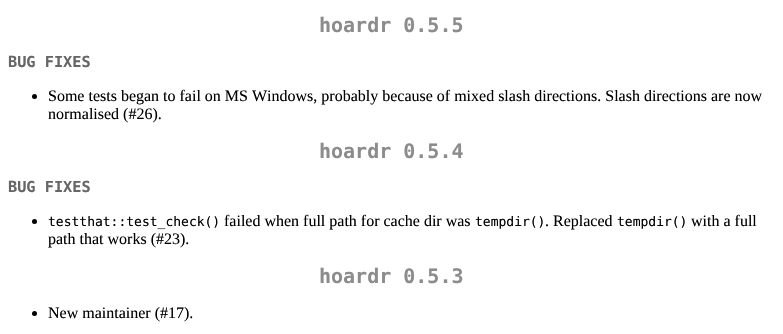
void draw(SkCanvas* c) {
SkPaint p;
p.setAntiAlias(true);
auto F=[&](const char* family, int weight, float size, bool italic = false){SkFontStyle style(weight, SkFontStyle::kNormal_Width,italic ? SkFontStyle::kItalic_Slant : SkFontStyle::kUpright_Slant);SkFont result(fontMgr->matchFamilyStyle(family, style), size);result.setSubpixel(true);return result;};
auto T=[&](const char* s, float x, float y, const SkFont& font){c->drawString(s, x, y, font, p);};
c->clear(0xffffffff);
auto f1 = F("DejaVu Sans Mono",700,20);
p.setColor(0xff8c8c8c);
T("hoardr 0.5.5",319,32,f1);
auto f2 = F("DejaVu Sans Mono",700,15.25);
p.setColor(0xff666666);
T("BUG FIXES",8,67,f2);
p.setColor(0xff000000);
c->drawCircle(34.5,96.5,2.5,p);
auto f3 = F("Liberation Serif",400,16);
T("Some tests began to fail on MS Windows, probably because of mixed slash directions. Slash directions are now",48,101,f3);
T("normalised (#26).",48,119,f3);
p.setColor(0xff8c8c8c);
T("hoardr 0.5.4",319,158,f1);
p.setColor(0xff666666);
T("BUG FIXES",8,192,f2);
p.setColor(0xff000000);
c->drawCircle(34.5,221.5,2.5,p);
auto f4 = F("DejaVu Sans Mono",400,13);
T("testthat::test_check()",48,226,f4);
T("failed when full path for cache dir was",224,226,f3);
T("tempdir()",475,226,f4);
T(". Replaced",545,226,f3);
T("tempdir()",617,226,f4);
T("with a full",691,226,f3);
T("path that works (#23).",48,244,f3);
p.setColor(0xff8c8c8c);
T("hoardr 0.5.3",319,283,f1);
p.setColor(0xff000000);
c->drawCircle(34.5,313.5,2.5,p);
T("New maintainer (#17).",48,318,f3);
}
